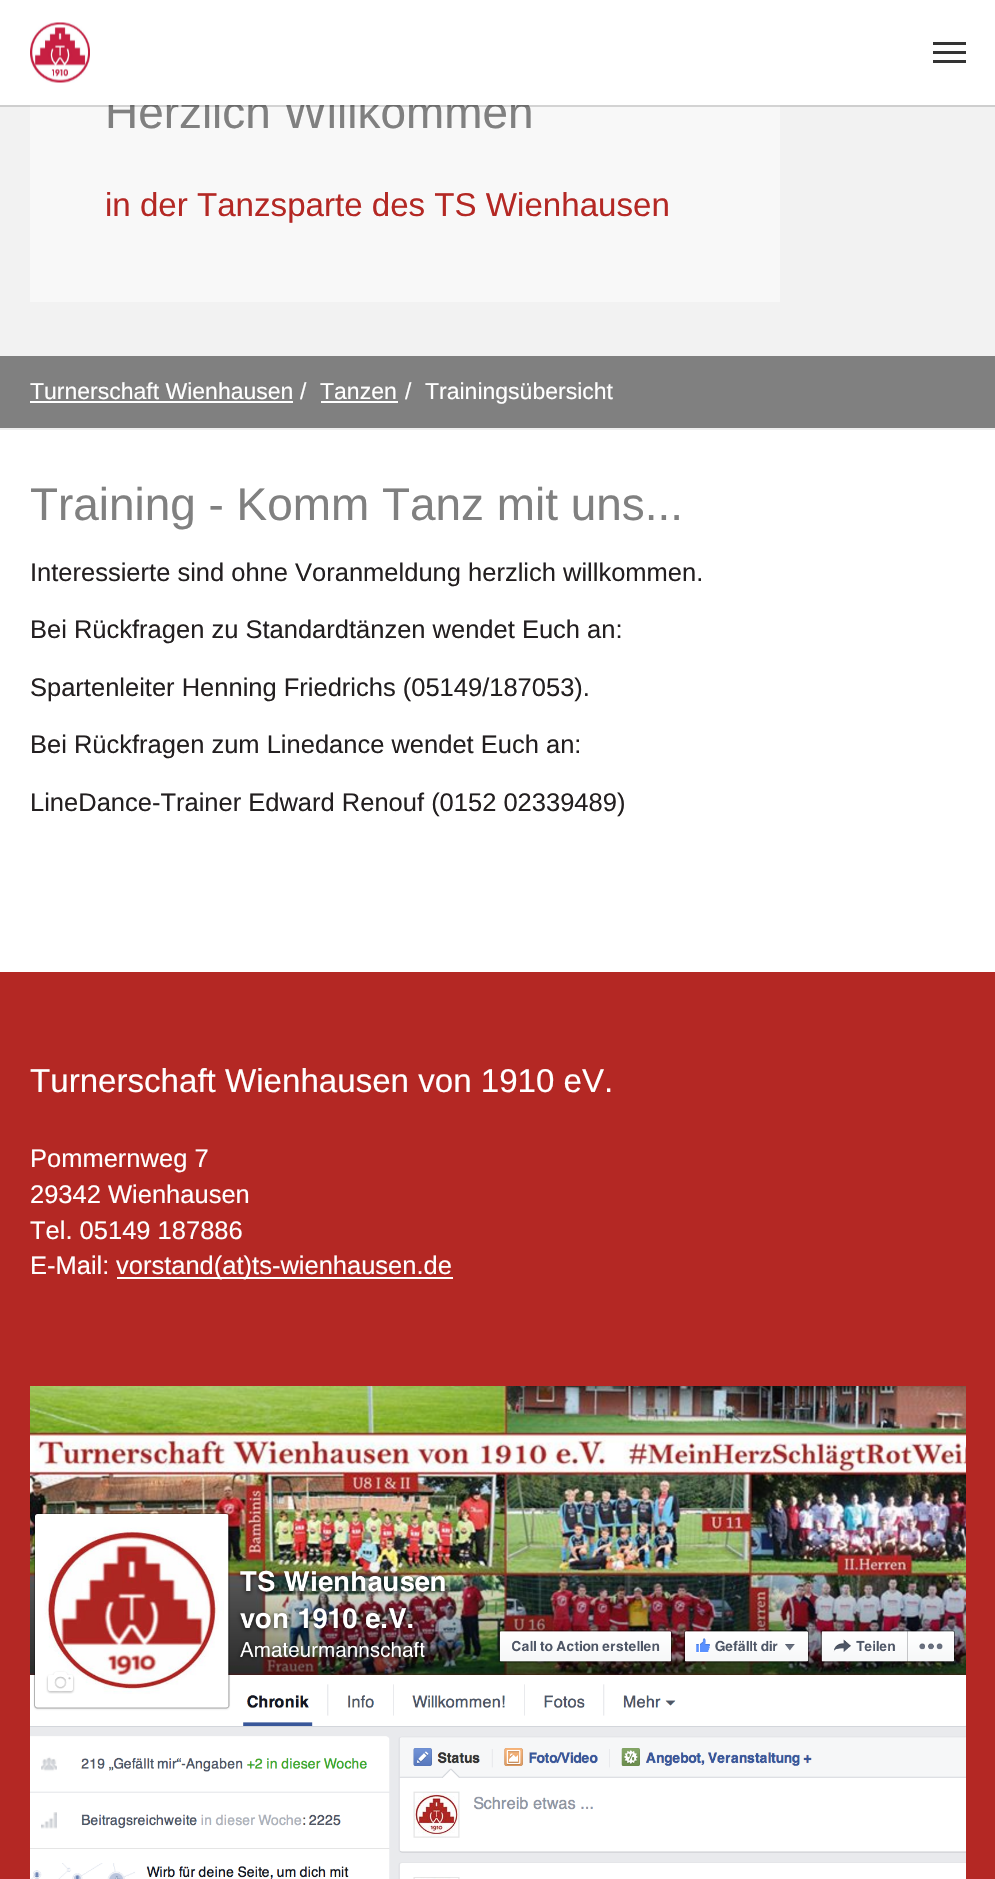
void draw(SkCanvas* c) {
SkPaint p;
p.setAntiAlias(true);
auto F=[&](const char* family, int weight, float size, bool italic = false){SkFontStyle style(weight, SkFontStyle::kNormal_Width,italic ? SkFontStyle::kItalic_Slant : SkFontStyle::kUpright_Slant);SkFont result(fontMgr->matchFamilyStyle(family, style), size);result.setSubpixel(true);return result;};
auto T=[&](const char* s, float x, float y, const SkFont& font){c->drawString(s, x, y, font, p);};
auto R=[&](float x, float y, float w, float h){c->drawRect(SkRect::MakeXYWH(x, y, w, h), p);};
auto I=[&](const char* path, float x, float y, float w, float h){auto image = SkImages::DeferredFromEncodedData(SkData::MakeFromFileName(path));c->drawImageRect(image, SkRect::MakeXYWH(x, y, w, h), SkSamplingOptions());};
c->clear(0xffffffff);
p.setColor(0xfff2f2f2);
R(0,105,995,251);
p.setColor(0xfff8f8f8);
R(30,105,750,197);
auto f1 = F("Liberation Sans",400,45.9);
p.setColor(0xff808080);
T("Herzlich Willkommen",105,128,f1);
p.setColor(0x26000000);
R(0,105,995,2);
p.setColor(0xffffffff);
R(108,94,421,11);
I("1.png",30,22,60,61);
p.setColor(0xff333333);
R(933,51,33,3);
R(933,42,33,3);
R(933,60,33,3);
auto f2 = F("Liberation Sans",400,33.1);
p.setColor(0xffb42824);
T("in der Tanzsparte des TS Wienhausen",105,216,f2);
p.setColor(0xff808080);
R(0,356,995,72);
p.setColor(0xffeeeeee);
R(0,428,995,2);
auto f3 = F("Liberation Sans",400,23);
p.setColor(0xffffffff);
T("Turnerschaft Wienhausen",30,399,f3);
R(30,401,263,2);
T("/",300,399,f3);
T("Tanzen",320,399,f3);
R(321,401,77,2);
T("/",405,399,f3);
T("Trainingsübersicht",425,399,f3);
p.setColor(0xff808080);
T("Training - Komm Tanz mit uns...",30,520,f1);
auto f4 = F("Liberation Sans",400,25.5);
p.setColor(0xff231f20);
T("Interessierte sind ohne Voranmeldung herzlich willkommen.",30,581,f4);
T("Bei Rückfragen zu Standardtänzen wendet Euch an:",30,638,f4);
T("Spartenleiter Henning Friedrichs (05149/187053).",30,696,f4);
T("Bei Rückfragen zum Linedance wendet Euch an:",30,753,f4);
T("LineDance-Trainer Edward Renouf (0152 02339489)",30,811,f4);
p.setColor(0xffb42824);
R(0,972,995,907);
p.setColor(0xffffffff);
T("Turnerschaft Wienhausen von 1910 eV.",30,1092,f2);
T("Pommernweg 7",30,1167,f4);
T("29342 Wienhausen",30,1203,f4);
T("Tel. 05149 187886",30,1239,f4);
T("E-Mail:",30,1274,f4);
R(117,1277,336,2);
T("vorstand(at)ts-wienhausen.de",116,1274,f4);
I("2.png",30,1386,936,493);
}
